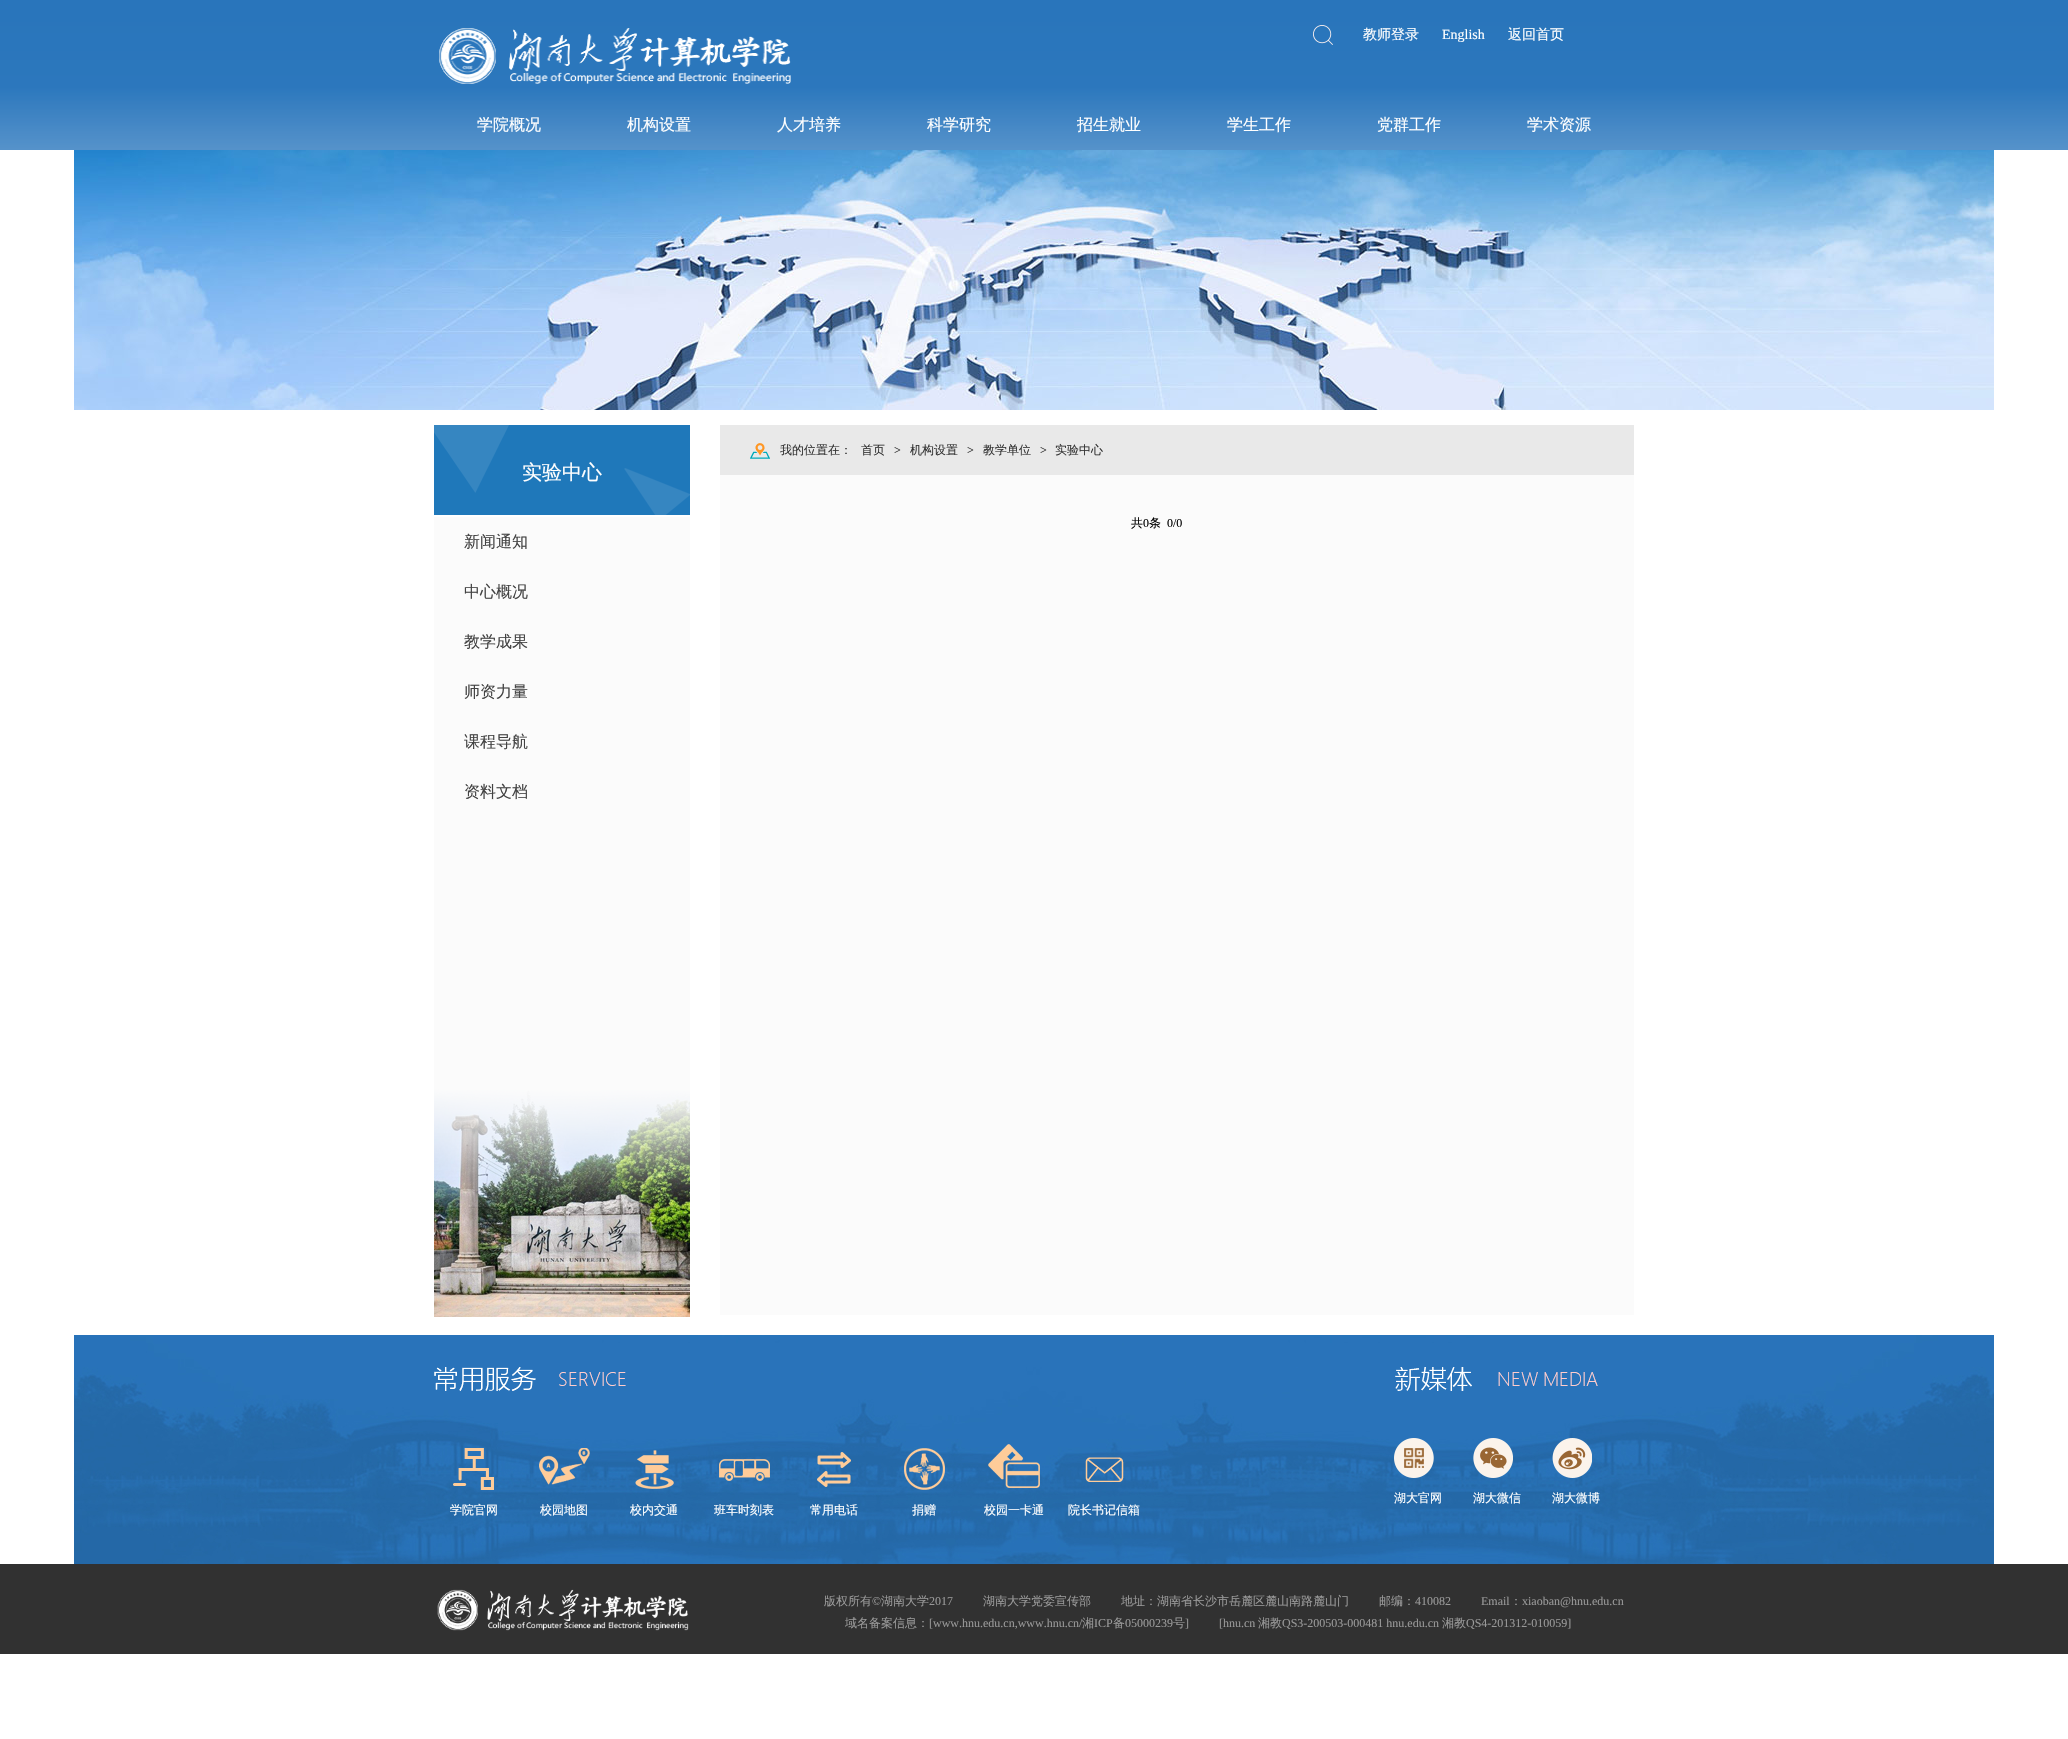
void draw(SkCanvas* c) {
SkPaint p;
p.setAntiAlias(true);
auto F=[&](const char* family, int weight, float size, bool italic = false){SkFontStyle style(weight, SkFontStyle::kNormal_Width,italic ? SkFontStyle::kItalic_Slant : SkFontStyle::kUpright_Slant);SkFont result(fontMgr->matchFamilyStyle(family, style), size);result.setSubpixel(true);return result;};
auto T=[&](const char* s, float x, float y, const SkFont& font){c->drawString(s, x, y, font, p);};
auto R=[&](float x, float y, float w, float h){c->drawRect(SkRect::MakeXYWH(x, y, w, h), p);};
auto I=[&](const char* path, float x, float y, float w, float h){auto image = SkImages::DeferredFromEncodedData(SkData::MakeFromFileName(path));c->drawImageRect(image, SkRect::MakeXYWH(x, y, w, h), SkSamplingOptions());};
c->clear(0xffffffff);
I("1.png",0,0,2068,150);
I("2.png",439,28,352,56);
I("3.png",1313,25,20,20);
auto f1 = F("WenQuanYi Zen Hei",500,14);
p.setColor(0xffffffff);
T("教师登录",1363,39,f1);
auto f2 = F("Liberation Serif",400,14);
T("English",1442,39,f2);
T("返回首页",1508,39,f1);
auto f3 = F("WenQuanYi Zen Hei",500,16);
T("学院概况",477,130,f3);
T("机构设置",627,130,f3);
T("人才培养",777,130,f3);
T("科学研究",927,130,f3);
T("招生就业",1077,130,f3);
T("学生工作",1227,130,f3);
T("党群工作",1377,130,f3);
T("学术资源",1527,130,f3);
I("4.png",74,150,1920,260);
I("5.png",434,425,256,90);
auto f4 = F("WenQuanYi Zen Hei",500,20);
T("实验中心",522,479,f4);
p.setColor(0xfffbfbfb);
R(434,517,256,560);
p.setColor(0xff424242);
T("新闻通知",464,547,f3);
T("中心概况",464,597,f3);
T("教学成果",464,647,f3);
T("师资力量",464,697,f3);
T("课程导航",464,747,f3);
T("资料文档",464,797,f3);
I("7.png",434,1089,256,228);
I("6.png",434,1077,256,130);
p.setColor(0xfffbfbfb);
R(720,475,914,840);
p.setColor(0xffe9e9e9);
R(720,425,914,50);
I("8.png",750,443,20,16);
auto f5 = F("WenQuanYi Zen Hei",500,12);
p.setColor(0xff333333);
T("我的位置在：",780,454,f5);
T("首页",861,454,f5);
auto f6 = F("Liberation Serif",400,12);
T(">",894,454,f6);
T("机构设置",910,454,f5);
T(">",967,454,f6);
T("教学单位",983,454,f5);
T(">",1040,454,f6);
T("实验中心",1055,454,f5);
p.setColor(0xff000000);
T("共",1131,527,f5);
T("0",1143,527,f6);
T("条",1149,527,f5);
T("0/0",1167,527,f6);
I("9.png",74,1335,1920,229);
I("10.png",1395,1367,203,24);
I("11.png",1394,1438,40,40);
p.setColor(0xffffffff);
T("湖大官网",1394,1502,f5);
I("12.png",1473,1438,40,40);
T("湖大微信",1473,1502,f5);
I("13.png",1552,1438,40,40);
T("湖大微博",1552,1502,f5);
I("14.png",434,1367,192,24);
I("15.png",453,1448,41,42);
T("学院官网",450,1514,f5);
I("16.png",539,1448,51,37);
T("校园地图",540,1514,f5);
I("17.png",635,1450,39,39);
T("校内交通",630,1514,f5);
I("18.png",719,1459,51,22);
T("班车时刻表",714,1514,f5);
I("19.png",817,1452,34,35);
T("常用电话",810,1514,f5);
I("20.png",904,1448,41,42);
T("捐赠",912,1514,f5);
I("21.png",988,1444,52,44);
T("校园一卡通",984,1514,f5);
I("22.png",1085,1457,39,25);
T("院长书记信箱",1068,1514,f5);
p.setColor(0xff313131);
R(0,1564,2068,90);
I("23.png",437,1589,252,42);
p.setColor(0xff999999);
T("版权所有",824,1605,f5);
T("©",872,1605,f6);
T("湖南大学",881,1605,f5);
T("2017",929,1605,f6);
T("湖南大学党委宣传部",983,1605,f5);
T("地址：湖南省长沙市岳麓区麓山南路麓山门",1121,1605,f5);
T("邮编：",1379,1605,f5);
T("410082          Email",1415,1605,f6);
T("：",1510,1605,f5);
T("xiaoban@hnu.edu.cn",1522,1605,f6);
T("域名备案信息：",845,1627,f5);
T("[www.hnu.edu.cn,www.hnu.cn/",929,1627,f6);
T("湘",1082,1627,f5);
T("ICP",1094,1627,f6);
T("备",1113,1627,f5);
T("05000239",1125,1627,f6);
T("号",1173,1627,f5);
T("]          [hnu.cn",1185,1627,f6);
T("湘教",1258,1627,f5);
T("QS3-200503-000481 hnu.edu.cn",1282,1627,f6);
T("湘教",1442,1627,f5);
T("QS4-201312-010059]",1466,1627,f6);
}
